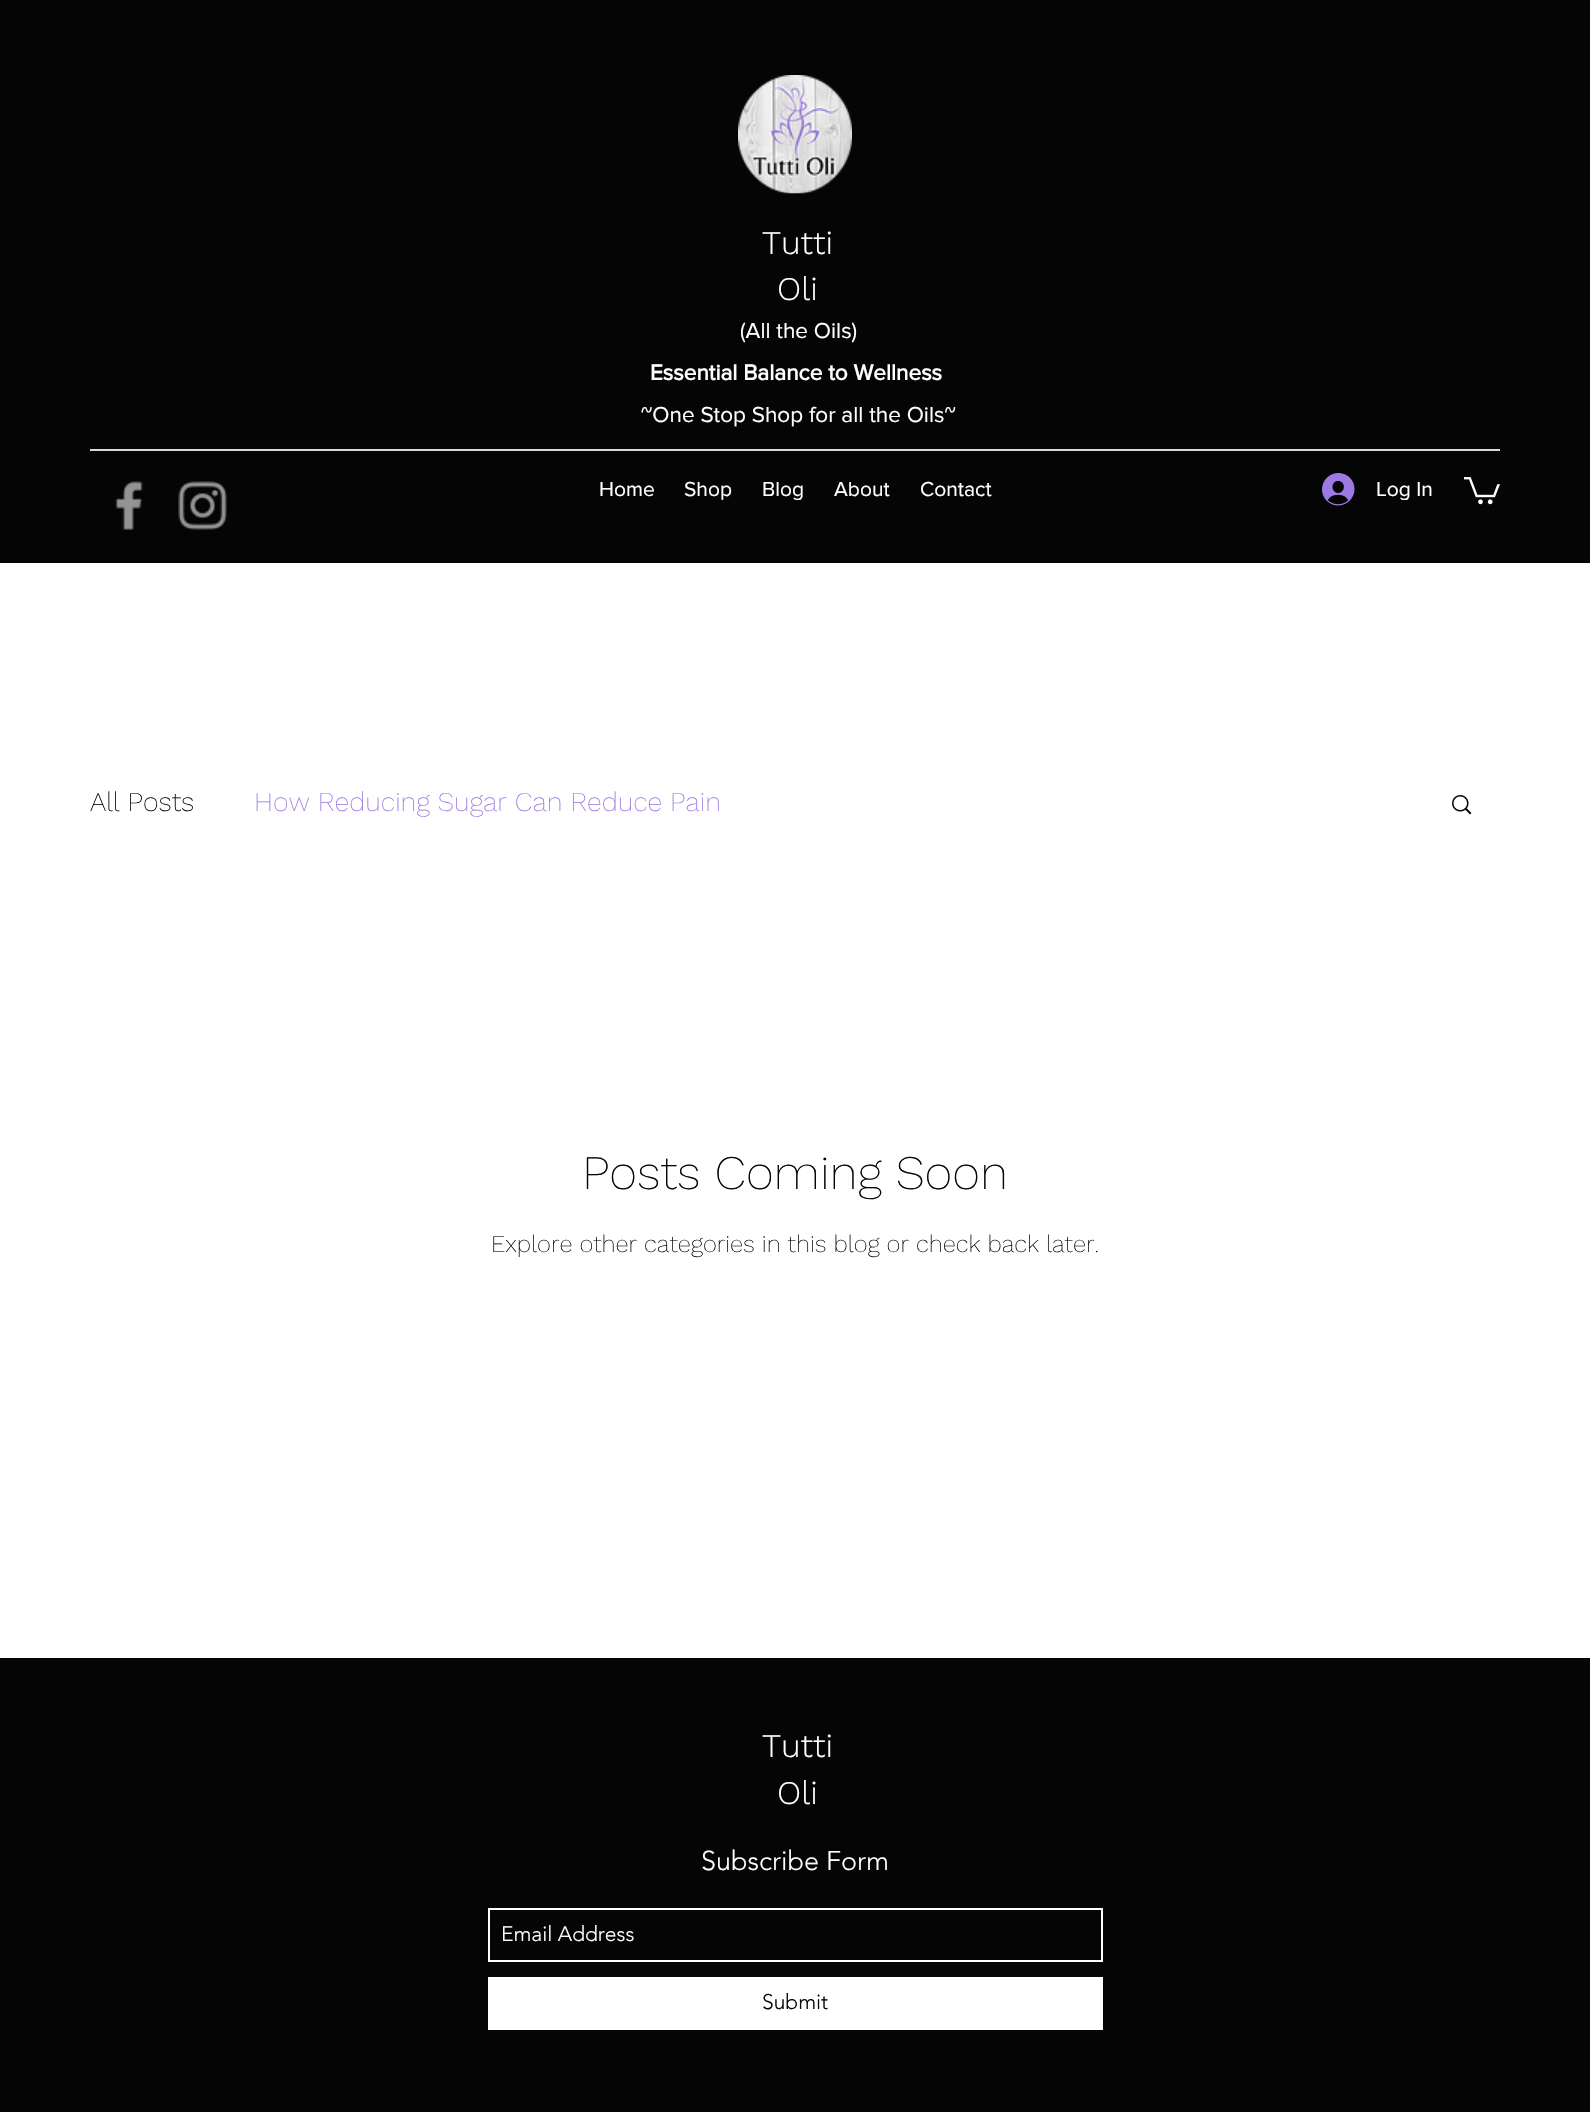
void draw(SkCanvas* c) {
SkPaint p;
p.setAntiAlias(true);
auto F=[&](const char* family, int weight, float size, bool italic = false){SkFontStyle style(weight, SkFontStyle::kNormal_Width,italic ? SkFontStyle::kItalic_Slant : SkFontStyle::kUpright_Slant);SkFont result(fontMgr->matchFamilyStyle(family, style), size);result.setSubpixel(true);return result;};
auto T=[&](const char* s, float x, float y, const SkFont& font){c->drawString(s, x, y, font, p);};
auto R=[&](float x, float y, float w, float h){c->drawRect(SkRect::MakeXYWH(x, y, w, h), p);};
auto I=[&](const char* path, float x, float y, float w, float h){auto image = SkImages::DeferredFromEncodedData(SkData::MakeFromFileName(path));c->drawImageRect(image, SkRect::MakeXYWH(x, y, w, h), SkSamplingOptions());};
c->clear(0xffffffff);
p.setColor(0xff050505);
R(0,0,1590,563);
I("1.png",738,75,114,119);
auto f1 = F("Work Sans",300,33);
p.setColor(0xffffffff);
T("Tutti",762,254,f1);
T("Oli",777,300,f1);
auto f2 = F("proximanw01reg",400,22.5);
T("(All the Oils)",740,338,f2);
auto f3 = F("proximanw01reg",700,22.5);
T("Essential Balance to Wellness",650,380,f3);
T("~One Stop Shop for all the Oils~",641,422,f2);
p.setColor(0xffdadada);
R(90,449,1410,2);
I("2.png",115,481,28,49);
I("3.png",178,481,49,49);
auto f4 = F("proximanw01reg",400,21);
p.setColor(0xffffffff);
T("Home",599,496,f4);
T("Shop",684,496,f4);
T("Blog",762,496,f4);
T("About",834,496,f4);
T("Contact",920,496,f4);
I("4.png",1322,473,33,33);
T("Log In",1376,496,f4);
I("5.png",1464,477,36,28);
auto f5 = F("Work Sans",200,27);
p.setColor(0xff050505);
T("All Posts",90,811,f5);
p.setColor(0xff9c7ae3);
T("How Reducing Sugar Can Reduce Pain",254,811,f5);
I("6.png",1452,795,20,20);
auto f6 = F("Work Sans",200,48);
p.setColor(0xff050505);
T("Posts Coming Soon",582,1189,f6);
auto f7 = F("Work Sans",200,24);
T("Explore other categories in this blog or check back later.",491,1252,f7);
R(0,1658,1590,454);
p.setColor(0xffffffff);
T("Tutti",762,1757,f1);
T("Oli",777,1804,f1);
auto f8 = F("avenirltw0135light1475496",300,27);
T("Subscribe Form",701,1870,f8);
p.setStroke(true);
p.setStrokeWidth(2);
c->drawRect(SkRect::MakeXYWH(489,1909,613,52),p);
auto f9 = F("avenirltw0135light1475496",300,21);
p.setStroke(false);
T("Email Address",501,1941,f9);
R(488,1977,615,53);
p.setColor(0xff050505);
T("Submit",762,2009,f9);
}
